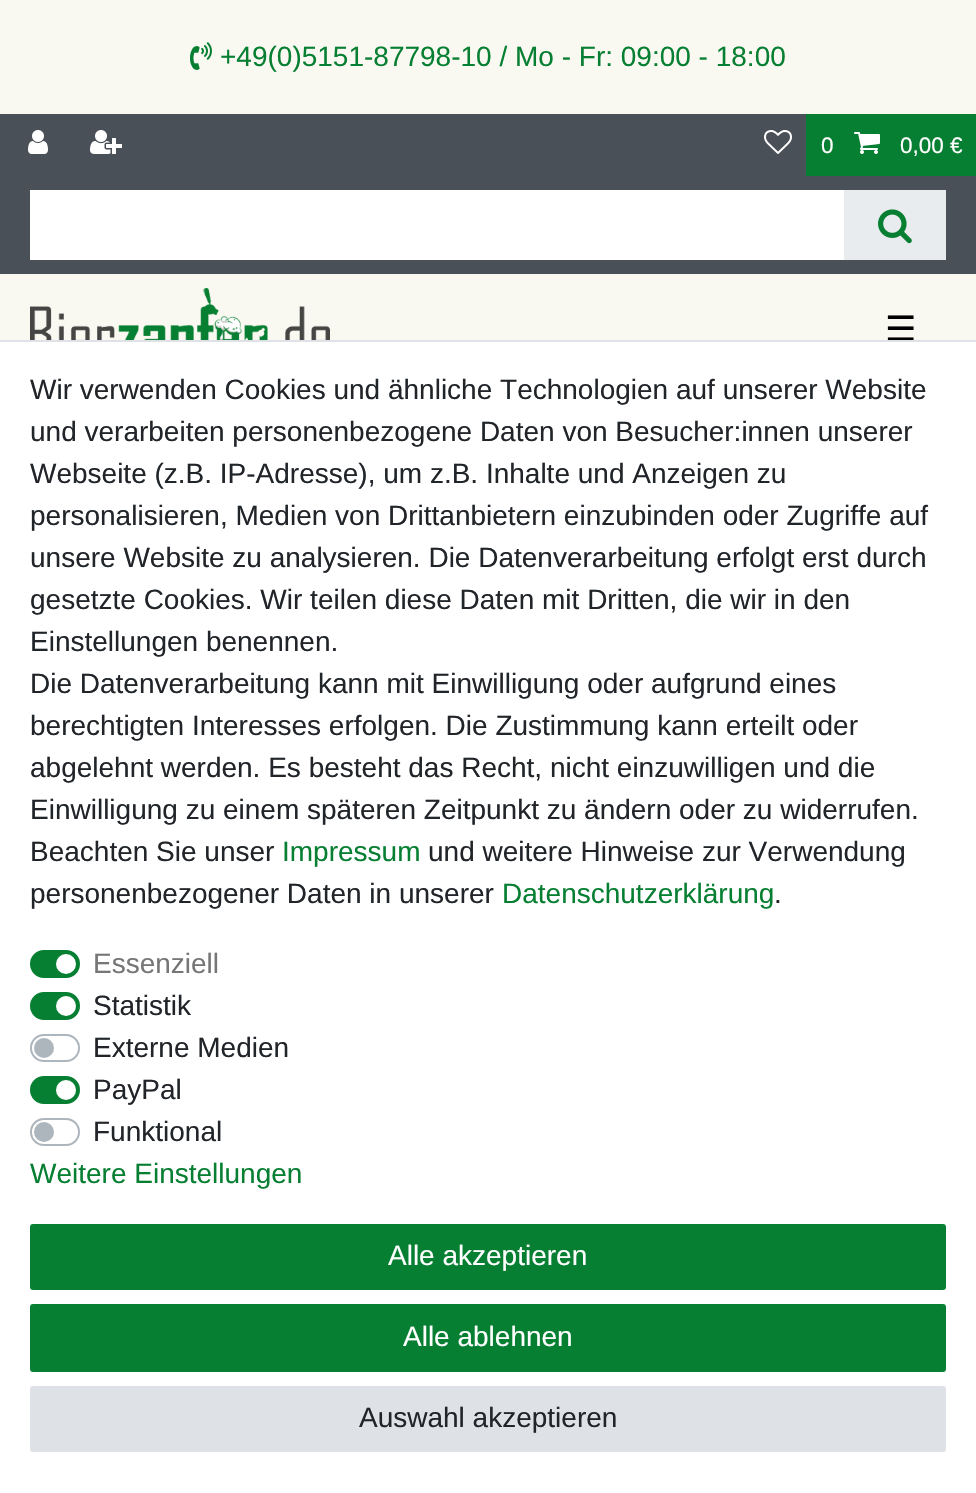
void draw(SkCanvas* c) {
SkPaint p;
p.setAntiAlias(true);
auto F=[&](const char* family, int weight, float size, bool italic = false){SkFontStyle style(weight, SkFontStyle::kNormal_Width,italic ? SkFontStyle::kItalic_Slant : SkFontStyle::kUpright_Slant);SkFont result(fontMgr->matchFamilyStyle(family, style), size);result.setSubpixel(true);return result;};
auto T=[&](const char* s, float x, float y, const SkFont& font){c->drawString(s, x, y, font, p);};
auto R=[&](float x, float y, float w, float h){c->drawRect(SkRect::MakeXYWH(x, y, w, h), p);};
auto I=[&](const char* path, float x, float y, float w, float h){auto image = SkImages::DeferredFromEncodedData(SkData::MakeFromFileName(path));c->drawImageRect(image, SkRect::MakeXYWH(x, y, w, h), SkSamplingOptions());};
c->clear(0xfff9f8f1);
I("1.png",190,42,22,28);
auto f1 = F("Liberation Sans",400,28);
p.setColor(0xff077f32);
T("+49(0)5151-87798-10 / Mo - Fr: 09:00 - 18:00",220,66,f1);
p.setColor(0xff495057);
R(0,114,976,160);
I("2.png",28,130,20,24);
I("3.png",90,130,32,24);
I("4.png",764,130,28,24);
p.setColor(0xff077f32);
R(806,114,170,62);
auto f2 = F("Liberation Sans",400,22.5);
p.setColor(0xffffffff);
T("0",821,153,f2);
I("5.png",854,132,26,22);
T("0,00 €",900,153,f2);
R(30,190,814,70);
p.setColor(0xffe9ecef);
R(844,190,102,70);
I("6.png",878,209,34,35);
I("7.png",30,288,300,52);
auto f3 = F("DejaVu Sans",400,35);
p.setColor(0xff000000);
T("☰",885,341,f3);
p.setColor(0xffffffff);
R(0,342,976,1151);
p.setColor(0xffdee2e6);
R(0,340,976,2);
p.setColor(0xff212529);
T("Wir verwenden Cookies und ähnliche Technologien auf unserer Website",30,399,f1);
T("und verarbeiten personenbezogene Daten von Besucher:innen unserer",30,441,f1);
T("Webseite (z.B. IP-Adresse), um z.B. Inhalte und Anzeigen zu",30,483,f1);
T("personalisieren, Medien von Drittanbietern einzubinden oder Zugriffe auf",30,525,f1);
T("unsere Website zu analysieren. Die Datenverarbeitung erfolgt erst durch",30,567,f1);
T("gesetzte Cookies. Wir teilen diese Daten mit Dritten, die wir in den",30,609,f1);
T("Einstellungen benennen.",30,651,f1);
T("Die Datenverarbeitung kann mit Einwilligung oder aufgrund eines",30,693,f1);
T("berechtigten Interesses erfolgen. Die Zustimmung kann erteilt oder",30,735,f1);
T("abgelehnt werden. Es besteht das Recht, nicht einzuwilligen und die",30,777,f1);
T("Einwilligung zu einem späteren Zeitpunkt zu ändern oder zu widerrufen.",30,819,f1);
T("Beachten Sie unser",30,861,f1);
p.setColor(0xff077f32);
T("Impressum",282,861,f1);
p.setColor(0xff212529);
T("und weitere Hinweise zur Verwendung",428,861,f1);
T("personenbezogener Daten in unserer",30,903,f1);
p.setColor(0xff077f32);
T("Datenschutzerklärung",502,903,f1);
p.setColor(0xff212529);
T(".",774,903,f1);
p.setColor(0xff077f32);
c->drawRoundRect(SkRect::MakeXYWH(31,951,48,26),13,13,p);
p.setStroke(true);
p.setStrokeWidth(2);
c->drawRoundRect(SkRect::MakeXYWH(31,951,48,26),13,13,p);
p.setStroke(false);
p.setColor(0xff767676);
T("Essenziell",93,973,f1);
p.setColor(0xffffffff);
c->drawCircle(66,964,10,p);
p.setColor(0xff077f32);
c->drawRoundRect(SkRect::MakeXYWH(31,993,48,26),13,13,p);
p.setStroke(true);
c->drawRoundRect(SkRect::MakeXYWH(31,993,48,26),13,13,p);
p.setStroke(false);
p.setColor(0xff212529);
T("Statistik",93,1015,f1);
p.setColor(0xffffffff);
c->drawCircle(66,1006,10,p);
p.setStroke(true);
p.setColor(0xffadb5bd);
c->drawRoundRect(SkRect::MakeXYWH(31,1035,48,26),13,13,p);
p.setStroke(false);
p.setColor(0xff212529);
T("Externe Medien",93,1057,f1);
p.setColor(0xffadb5bd);
c->drawCircle(44,1048,10,p);
p.setColor(0xff077f32);
c->drawRoundRect(SkRect::MakeXYWH(31,1077,48,26),13,13,p);
p.setStroke(true);
c->drawRoundRect(SkRect::MakeXYWH(31,1077,48,26),13,13,p);
p.setStroke(false);
p.setColor(0xff212529);
T("PayPal",93,1099,f1);
p.setColor(0xffffffff);
c->drawCircle(66,1090,10,p);
p.setStroke(true);
p.setColor(0xffadb5bd);
c->drawRoundRect(SkRect::MakeXYWH(31,1119,48,26),13,13,p);
p.setStroke(false);
p.setColor(0xff212529);
T("Funktional",93,1141,f1);
p.setColor(0xffadb5bd);
c->drawCircle(44,1132,10,p);
p.setColor(0xff077f32);
T("Weitere Einstellungen",30,1183,f1);
c->drawRoundRect(SkRect::MakeXYWH(31,1225,914,64),2,2,p);
p.setStroke(true);
c->drawRoundRect(SkRect::MakeXYWH(31,1225,914,64),2,2,p);
p.setStroke(false);
p.setColor(0xffffffff);
T("Alle akzeptieren",388,1265,f1);
p.setColor(0xff077f32);
c->drawRoundRect(SkRect::MakeXYWH(31,1305,914,66),2,2,p);
p.setStroke(true);
c->drawRoundRect(SkRect::MakeXYWH(31,1305,914,66),2,2,p);
p.setStroke(false);
p.setColor(0xffffffff);
T("Alle ablehnen",403,1346,f1);
p.setColor(0xffdee2e6);
c->drawRoundRect(SkRect::MakeXYWH(31,1387,914,64),2,2,p);
p.setStroke(true);
c->drawRoundRect(SkRect::MakeXYWH(31,1387,914,64),2,2,p);
p.setStroke(false);
p.setColor(0xff212529);
T("Auswahl akzeptieren",359,1427,f1);
}
